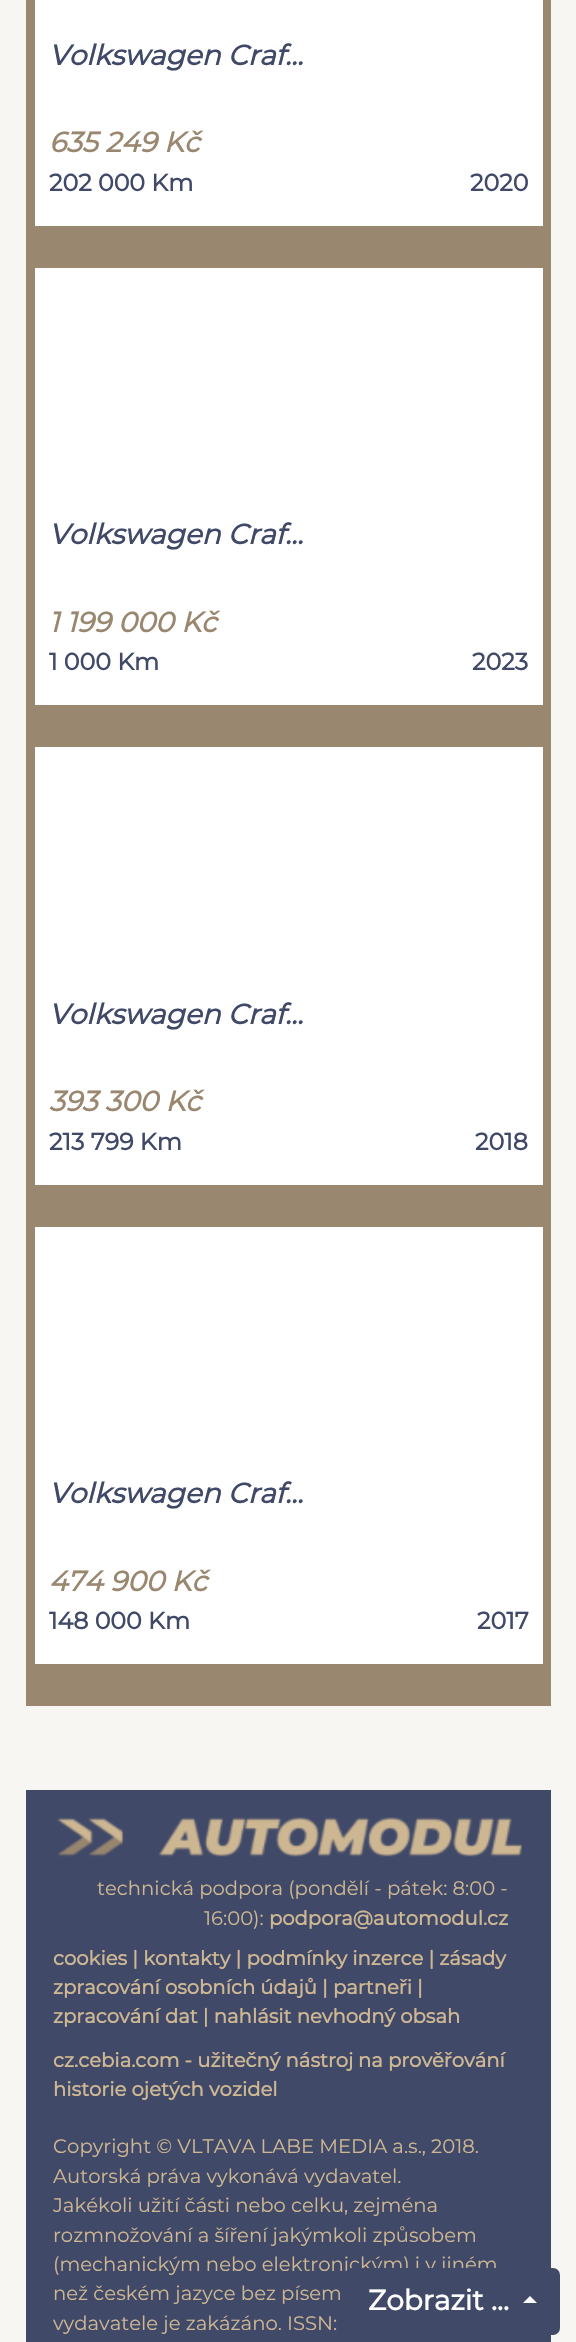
void draw(SkCanvas* c) {
SkPaint p;
p.setAntiAlias(true);
auto F=[&](const char* family, int weight, float size, bool italic = false){SkFontStyle style(weight, SkFontStyle::kNormal_Width,italic ? SkFontStyle::kItalic_Slant : SkFontStyle::kUpright_Slant);SkFont result(fontMgr->matchFamilyStyle(family, style), size);result.setSubpixel(true);return result;};
auto T=[&](const char* s, float x, float y, const SkFont& font){c->drawString(s, x, y, font, p);};
auto R=[&](float x, float y, float w, float h){c->drawRect(SkRect::MakeXYWH(x, y, w, h), p);};
auto Q=[&](float x, float y, float w, float h, float radius){c->drawRoundRect(SkRect::MakeXYWH(x, y, w, h), radius, radius, p);};
auto I=[&](const char* path, float x, float y, float w, float h){auto image = SkImages::DeferredFromEncodedData(SkData::MakeFromFileName(path));c->drawImageRect(image, SkRect::MakeXYWH(x, y, w, h), SkSamplingOptions());};
auto P=[&](const char* data, bool evenOdd = false){SkPath result = *SkParsePath::FromSVGString(data);if (evenOdd) result.setFillType(SkPathFillType::kEvenOdd);return result;};
c->clear(0xfff8f6f3);
p.setColor(0xff99876f);
R(26,0,525,1706);
p.setColor(0xffffffff);
R(35,0,508,226);
auto f1 = F("Montserrat",700,28,true);
p.setColor(0xff404968);
T("Volkswagen Craf...",49,65,f1);
p.setColor(0xff99876f);
T("635 249 Kč",49,152,f1);
auto f2 = F("Montserrat",700,23.75);
p.setColor(0xff404968);
T("202 000 Km",49,191,f2);
T("2020",470,191,f2);
p.setColor(0xffffffff);
R(35,268,508,437);
p.setColor(0xff404968);
T("Volkswagen Craf...",49,544,f1);
p.setColor(0xff99876f);
T("1 199 000 Kč",49,632,f1);
p.setColor(0xff404968);
T("1 000 Km",49,670,f2);
T("2023",472,670,f2);
p.setColor(0xffffffff);
R(35,747,508,438);
p.setColor(0xff404968);
T("Volkswagen Craf...",49,1024,f1);
p.setColor(0xff99876f);
T("393 300 Kč",49,1111,f1);
p.setColor(0xff404968);
T("213 799 Km",49,1150,f2);
T("2018",475,1150,f2);
p.setColor(0xffffffff);
R(35,1227,508,437);
p.setColor(0xff404968);
T("Volkswagen Craf...",49,1503,f1);
p.setColor(0xff99876f);
T("474 900 Kč",49,1591,f1);
p.setColor(0xff404968);
T("148 000 Km",49,1629,f2);
T("2017",477,1629,f2);
R(26,1790,525,552);
I("1.png",57,1817,465,40);
auto f3 = F("Montserrat",400,19.6);
p.setColor(0xffceb793);
T("technická podpora (pondělí - pátek: 8:00 -",97,1895,f3);
T("16:00):",204,1925,f3);
auto f4 = F("Montserrat",700,19.6);
T("podpora@automodul.cz",269,1925,f4);
T("cookies | kontakty | podmínky inzerce | zásady",53,1965,f4);
T("zpracování osobních údajů | partneři |",53,1994,f4);
T("zpracování dat | nahlásit nevhodný obsah",53,2023,f4);
T("cz.cebia.com - užitečný nástroj",53,2067,f4);
T("na prověřování",358,2067,f4);
T("historie ojetých vozidel",53,2096,f4);
T("Copyright © VLTAVA LABE MEDIA a.s., 2018.",53,2153,f3);
T("Autorská práva vykonává vydavatel.",53,2183,f3);
T("Jakékoli užití části nebo celku, zejména",53,2212,f3);
T("rozmnožování a šíření jakýmkoli způsobem",53,2242,f3);
T("(mechanickým nebo elektronickým) i v jiném",53,2271,f3);
T("než českém jazyce bez písem",53,2300,f3);
T("vydavatele je zakázáno. ISSN:",53,2330,f3);
p.setColor(0xff404968);
Q(345,2268,215,67,7);
auto f5 = F("Montserrat",700,28);
p.setColor(0xffffffff);
T("Zobrazit ...",368,2310,f5);
c->drawPath(P("M537 2303h-14l7-7z"),p);
}
